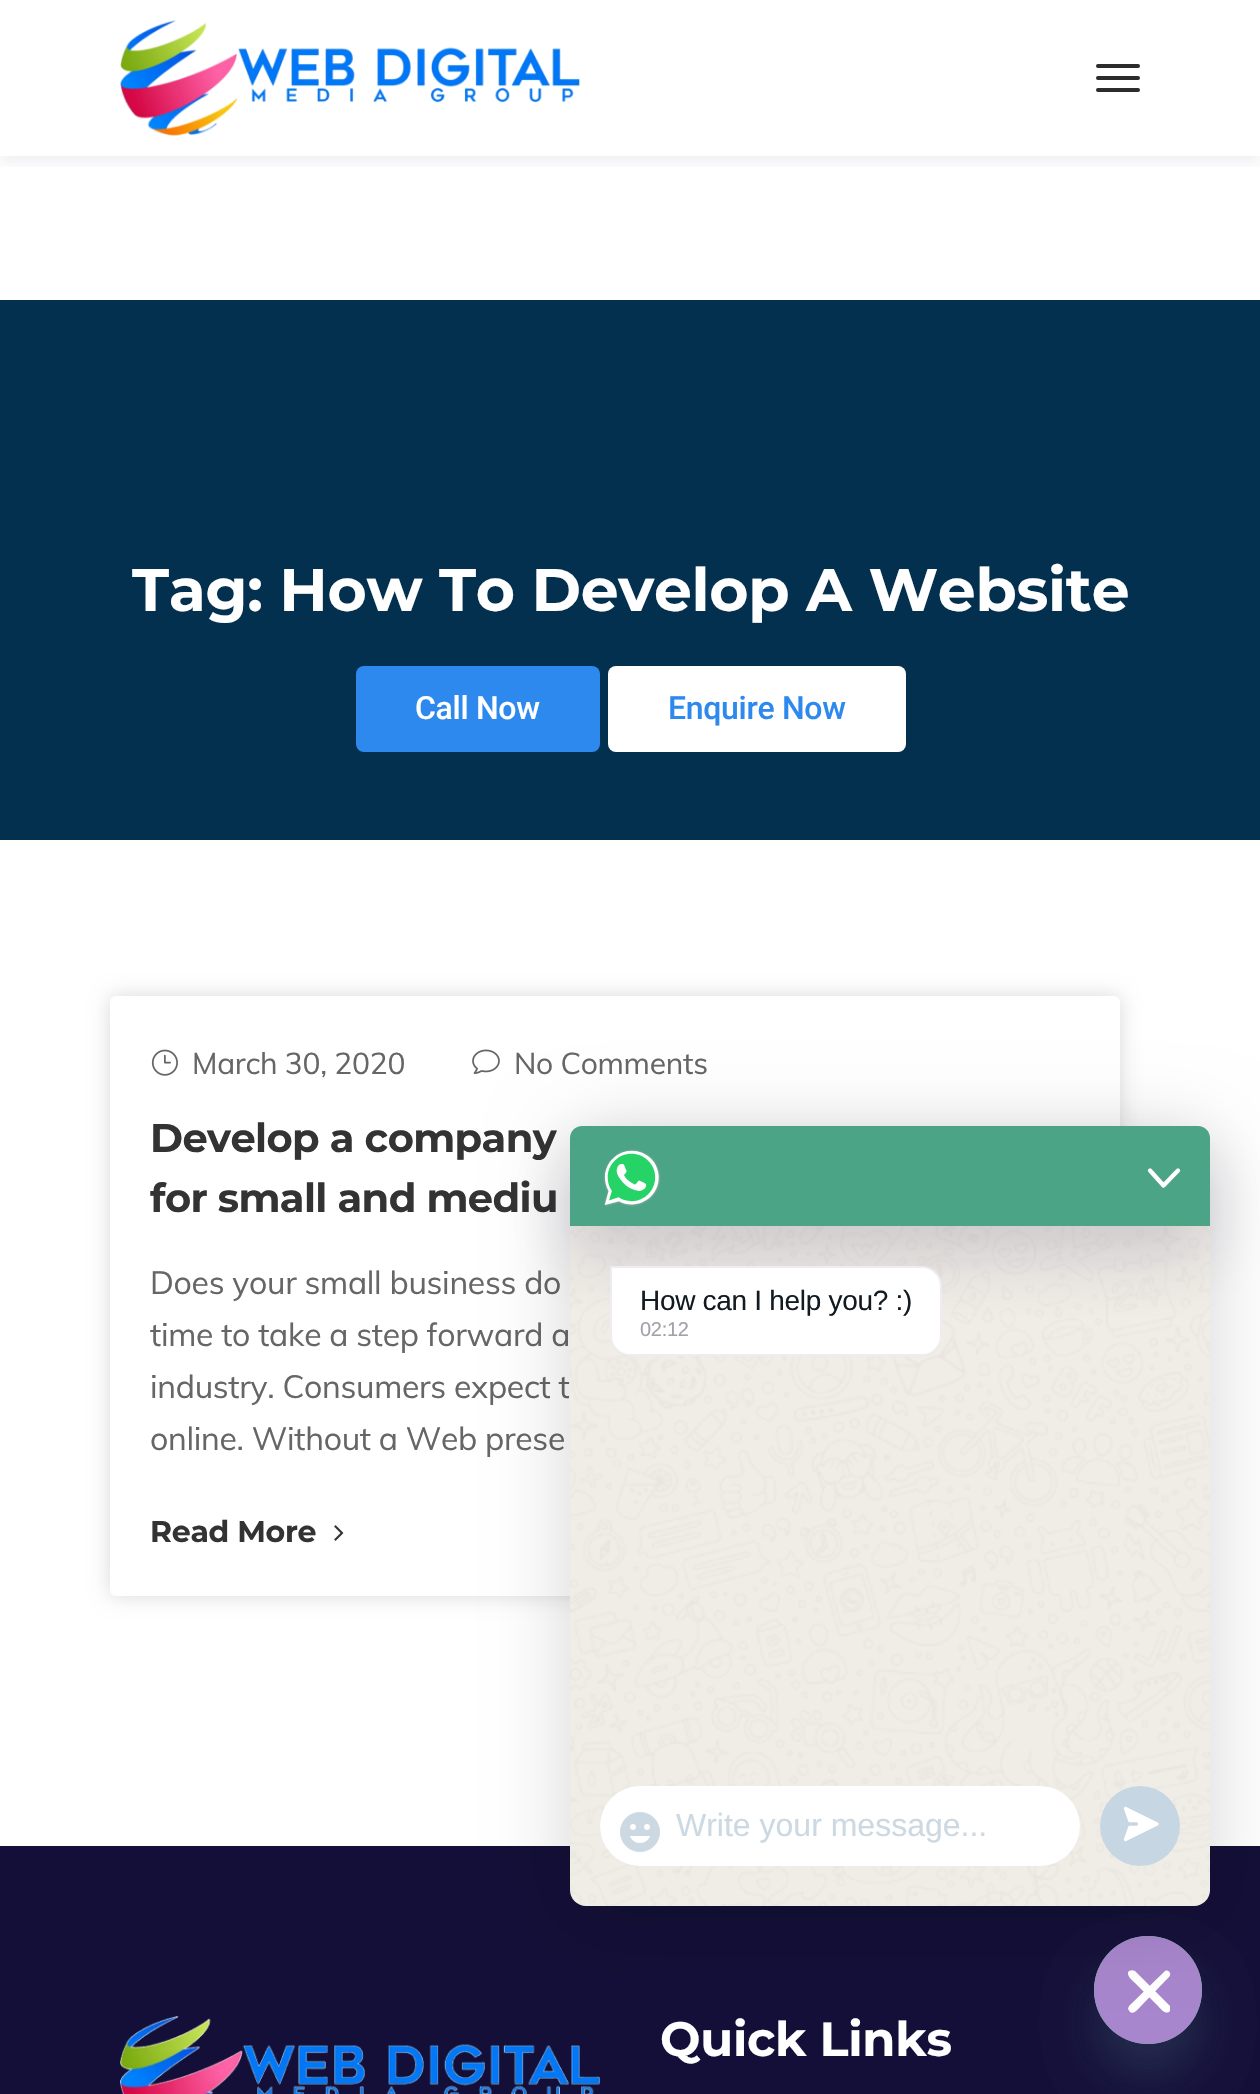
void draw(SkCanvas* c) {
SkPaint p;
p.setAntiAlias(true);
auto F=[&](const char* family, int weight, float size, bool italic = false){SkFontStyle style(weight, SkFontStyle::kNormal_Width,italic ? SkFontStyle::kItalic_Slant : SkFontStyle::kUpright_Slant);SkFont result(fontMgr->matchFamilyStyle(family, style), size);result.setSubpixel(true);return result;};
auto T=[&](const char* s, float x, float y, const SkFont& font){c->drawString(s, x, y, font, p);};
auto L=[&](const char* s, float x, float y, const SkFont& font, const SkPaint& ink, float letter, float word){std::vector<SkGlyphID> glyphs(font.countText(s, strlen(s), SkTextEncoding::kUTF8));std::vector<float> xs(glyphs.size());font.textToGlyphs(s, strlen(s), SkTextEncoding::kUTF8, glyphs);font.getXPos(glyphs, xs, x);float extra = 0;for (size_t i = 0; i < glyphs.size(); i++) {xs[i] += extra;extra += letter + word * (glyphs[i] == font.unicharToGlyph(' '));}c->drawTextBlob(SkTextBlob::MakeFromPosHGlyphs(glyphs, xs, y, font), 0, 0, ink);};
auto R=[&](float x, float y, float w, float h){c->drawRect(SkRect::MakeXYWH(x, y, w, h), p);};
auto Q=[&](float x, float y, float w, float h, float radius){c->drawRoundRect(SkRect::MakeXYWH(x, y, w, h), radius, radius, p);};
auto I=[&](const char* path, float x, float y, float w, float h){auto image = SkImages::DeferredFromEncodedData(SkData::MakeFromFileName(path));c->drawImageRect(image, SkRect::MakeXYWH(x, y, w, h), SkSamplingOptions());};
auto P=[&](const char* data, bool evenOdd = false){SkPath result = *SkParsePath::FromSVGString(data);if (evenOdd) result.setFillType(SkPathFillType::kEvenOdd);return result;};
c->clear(0xffffffff);
c->save();
c->clipRect(SkRect::MakeXYWH(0,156,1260,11));
p.setColor(0x0f0c002e);
p.setMaskFilter(SkMaskFilter::MakeBlur(kNormal_SkBlurStyle, 6));
c->drawRect(SkRect::MakeXYWH(0,8,1260,156),p);
p.setMaskFilter(nullptr);
c->restore();
I("1.png",120,20,460,116);
p.setColor(0xff2c2c2c);
Q(1096,64,44,4,2);
Q(1096,76,44,4,2);
Q(1096,88,44,4,2);
p.setColor(0xff03304f);
R(0,300,1260,540);
auto f1 = F("Montserrat",700,60);
p.setColor(0xffffffff);
L("Tag: How To Develop A Website",132,611,f1,p,-.3,0);
p.setColor(0xff2d89ee);
Q(356,666,244,86,8);
auto f2 = F("Roboto",500,32);
p.setColor(0xffffffff);
L("Call Now",415,719,f2,p,-.3,0);
Q(608,666,298,86,8);
p.setColor(0xff2d89ee);
L("Enquire Now",668,719,f2,p,-.3,0);
p.setColor(0x26000000);
p.setMaskFilter(SkMaskFilter::MakeBlur(kNormal_SkBlurStyle, 10));
c->drawRoundRect(SkRect::MakeXYWH(110,996,1010,600),6,6,p);
p.setMaskFilter(nullptr);
p.setColor(0xffffffff);
Q(110,996,1010,600,6);
I("2.png",151,1049,27,27);
auto f3 = F("Muli",400,30);
p.setColor(0xff666666);
L("March 30, 2020",192,1074,f3,p,-.3,0);
I("3.png",472,1049,28,25);
L("No Comments",514,1074,f3,p,-.3,0);
auto f4 = F("Montserrat",700,40);
p.setColor(0xff333333);
L("Develop a company",150,1152,f4,p,-.6,0);
L("for small and mediu",150,1212,f4,p,-.6,0);
auto f5 = F("Muli",400,32);
p.setColor(0xff666666);
L("Does your small business do",150,1294,f5,p,-.3,0);
L("time to take a step forward a",150,1346,f5,p,-.3,0);
L("industry. Consumers expect t",150,1398,f5,p,-.3,0);
L("online. Without a Web prese",150,1450,f5,p,-.3,0);
auto f6 = F("Montserrat",700,30);
p.setColor(0xff333333);
L("Read More",150,1542,f6,p,-.3,0);
I("4.png",334,1525,10,16);
p.setColor(0xff130f38);
R(0,1846,1260,248);
I("8.png",120,2016,480,78);
p.setColor(0x2949687e);
p.setMaskFilter(SkMaskFilter::MakeBlur(kNormal_SkBlurStyle, 24));
c->drawRoundRect(SkRect::MakeXYWH(1094,1968,108,108),54,54,p);
p.setMaskFilter(nullptr);
I("9.png",1094,1936,108,108);
p.setMaskFilter(SkMaskFilter::MakeBlur(kNormal_SkBlurStyle, 24));
c->drawRoundRect(SkRect::MakeXYWH(1094,1968,108,108),54,54,p);
p.setMaskFilter(nullptr);
p.setColor(0xffa886cd);
c->drawCircle(1148,1990,54,p);
p.setColor(0xffffffff);
c->drawPath(P("M1135 1971l35 35c0 2 0 3 0 5c-4 5-10-3-12-5l-23-23c-1-1-10-8-6-12c2-1 4-1 6 0z"),p);
c->drawPath(P("M1169 1977l-28 29c-2 2-7 9-11 6l-2-3l1-3l36-35c4-2 7 3 4 6z"),p);
p.setColor(0x29000000);
p.setMaskFilter(SkMaskFilter::MakeBlur(kNormal_SkBlurStyle, 40));
c->drawRoundRect(SkRect::MakeXYWH(570,1136,640,780),12,12,p);
p.setMaskFilter(nullptr);
p.setColor(0xfff0ede7);
Q(570,1126,640,780,16);
I("6.png",570,1226,640,680);
p.setColor(0x291a0e35);
p.setMaskFilter(SkMaskFilter::MakeBlur(kNormal_SkBlurStyle, 32));
c->drawRoundRect(SkRect::MakeXYWH(570,1158,640,100),12,12,p);
p.setMaskFilter(nullptr);
p.setColor(0xff4aa485);
c->drawPath(P("M582 1126h616c6.5 0 12 5.5 12 12v88h-640v-88c0-6.5 5.5-12 12-12z"),p);
I("5.png",603,1149,58,58);
p.setStroke(true);
p.setStrokeWidth(4.3);
p.setStrokeCap(SkPaint::kRound_Cap);
p.setStrokeJoin(SkPaint::kRound_Join);
p.setColor(0xffffffff);
c->drawPath(P("M1150 1170.5l13.5 15l14.5-15"),p);
p.setStroke(false);
c->drawPath(P("M610 1266h312c11 0 20 9 20 20v50c0 11-9 20-20 20h-292c-11 0-20-9-20-20z"),p);
p.setStroke(true);
p.setStrokeWidth(2);
p.setStrokeCap(SkPaint::kButt_Cap);
p.setStrokeJoin(SkPaint::kMiter_Join);
p.setColor(0x14221147);
c->drawPath(P("M611 1267h311c10.5 0 19 8.5 19 19v50c0 10.5-8.5 19-19 19h-292c-10.5 0-19-8.5-19-19z"),p);
auto f7 = F("Liberation Sans",400,28);
p.setStroke(false);
p.setColor(0xff111b21);
L("How can I help you? :)",640,1310,f7,p,-.3,0);
auto f8 = F("Liberation Sans",400,20);
p.setColor(0xffa1a1a9);
L("02:12",640,1336,f8,p,-.3,0);
p.setColor(0xffffffff);
Q(600,1786,480,80,40);
I("7.png",620,1812,40,40);
auto f9 = F("Liberation Sans",400,32);
p.setColor(0xffcdd9e2);
T("Write your message...",676,1836,f9);
p.setColor(0xffc6d7e3);
c->drawCircle(1140,1826,40,p);
p.setColor(0xffffffff);
c->drawPath(P("M1157 1824l-31.5 15.5l5.5-15.5l-5.5-15.5z"),p);
p.setStroke(true);
p.setStrokeWidth(3.3);
p.setStrokeCap(SkPaint::kRound_Cap);
p.setStrokeJoin(SkPaint::kRound_Join);
c->drawPath(P("M1157 1824l-31.5 15.5l5.5-15.5l-5.5-15.5z"),p);
p.setColor(0xffc6d7e3);
c->drawPath(P("M1136.5 1824h-10.5"),p);
auto f10 = F("Montserrat",700,48);
p.setStroke(false);
p.setColor(0xffffffff);
L("Quick Links",660,2056,f10,p,-.3,0);
}
